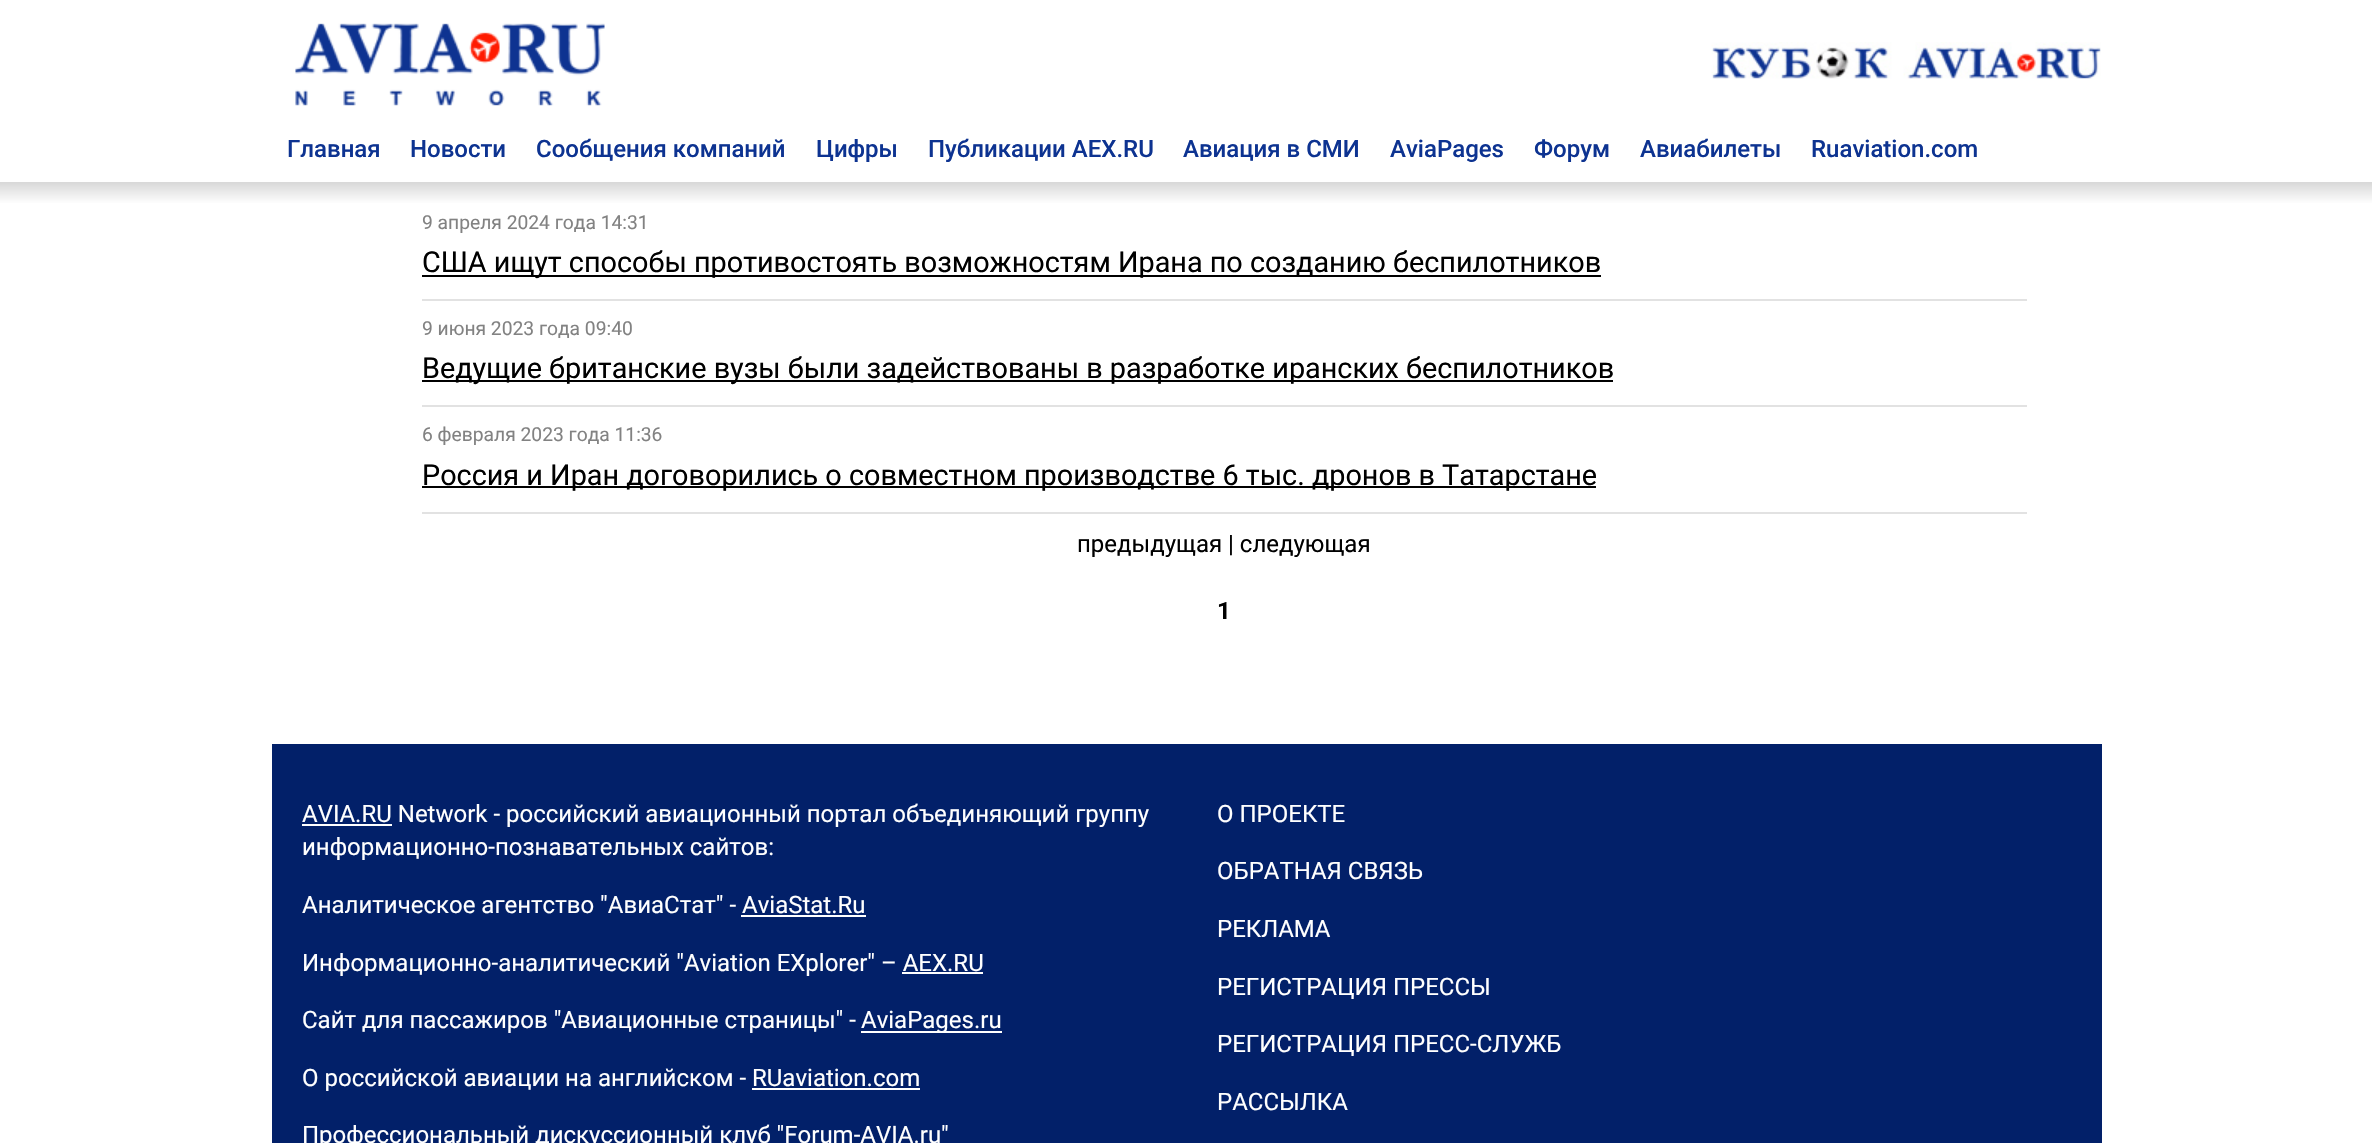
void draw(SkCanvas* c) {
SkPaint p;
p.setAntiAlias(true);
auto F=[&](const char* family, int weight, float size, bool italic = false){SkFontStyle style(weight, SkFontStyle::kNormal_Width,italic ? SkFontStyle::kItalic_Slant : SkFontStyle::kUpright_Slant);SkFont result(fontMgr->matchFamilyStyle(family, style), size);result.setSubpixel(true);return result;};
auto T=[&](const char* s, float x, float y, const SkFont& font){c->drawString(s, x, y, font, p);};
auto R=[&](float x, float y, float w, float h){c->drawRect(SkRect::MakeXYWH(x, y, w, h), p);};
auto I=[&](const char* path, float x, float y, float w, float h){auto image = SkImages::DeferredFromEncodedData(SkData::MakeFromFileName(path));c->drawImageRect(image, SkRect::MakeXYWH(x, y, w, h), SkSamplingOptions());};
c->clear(0xffffffff);
I("1.png",295,23,310,83);
I("2.png",1711,42,390,37);
auto f1 = F("Roboto",500,24);
p.setColor(0xff0d3391);
T("Главная",287,157,f1);
T("Новости",410,157,f1);
T("Сообщения компаний",536,157,f1);
T("Цифры",816,157,f1);
T("Публикации AEX.RU",928,157,f1);
T("Авиация в СМИ",1183,157,f1);
T("AviaPages",1390,157,f1);
T("Форум",1534,157,f1);
T("Авиабилеты",1640,157,f1);
T("Ruaviation.com",1811,157,f1);
{
const SkColor colors[] = {0xffd6d6d6,0xffffffff};
const float stops[] = {0,1};
const SkPoint ends[] = {{1187,181}, {1187,204}};
p.setShader(SkGradientShader::MakeLinear(ends, colors, stops, 2, SkTileMode::kClamp));
p.setAlpha(255);
}
R(0,182,2372,21);
auto f2 = F("Roboto",400,19.25);
p.setShader(nullptr);
p.setColor(0xff828282);
T("9 апреля 2024 года 14:31",422,229,f2);
p.setColor(0xff000000);
R(422,275,1179,2);
auto f3 = F("Roboto",400,28.8);
T("США ищут способы противостоять возможностям Ирана по созданию беспилотников",422,272,f3);
p.setColor(0xffe2e2e2);
R(422,299,1605,2);
p.setColor(0xff828282);
T("9 июня 2023 года 09:40",422,335,f2);
p.setColor(0xff000000);
R(422,380,1191,2);
T("Ведущие британские вузы были задействованы в разработке иранских беспилотников",422,378,f3);
p.setColor(0xffe2e2e2);
R(422,405,1605,2);
p.setColor(0xff828282);
T("6 февраля 2023 года 11:36",422,441,f2);
p.setColor(0xff000000);
R(422,486,1174,2);
T("Россия и Иран договорились о совместном производстве 6 тыс. дронов в Татарстане",422,485,f3);
p.setColor(0xffe2e2e2);
R(422,512,1605,2);
auto f4 = F("Roboto",400,24);
p.setColor(0xff000000);
T("предыдущая | следующая",1077,552,f4);
auto f5 = F("Roboto",700,24);
T("1",1217,619,f5);
p.setColor(0xff022069);
R(272,744,1830,399);
p.setColor(0xffffffff);
R(302,824,90,2);
T("AVIA.RU Network - российский авиационный портал объединяющий группу",302,822,f4);
T("информационно-познавательных сайтов:",302,855,f4);
T("Аналитическое агентство \"АвиаСтат\" - AviaStat.Ru",302,913,f4);
R(741,915,125,2);
T("Информационно-аналитический \"Aviation EХplorer\" – AEX.RU",302,971,f4);
R(902,972,81,2);
T("Сайт для пассажиров \"Авиационные страницы\" -",302,1028,f4);
R(861,1031,141,2);
T("AviaPages.ru",861,1028,f4);
T("О российской авиации на английском - RUaviation.com",302,1086,f4);
R(752,1088,168,2);
T("Профессиональный дискуссионный клуб \"Forum-AVIA.ru\"",302,1143,f4);
T("О ПРОЕКТЕ",1217,822,f4);
T("ОБРАТНАЯ СВЯЗЬ",1217,879,f4);
T("РЕКЛАМА",1217,937,f4);
T("РЕГИСТРАЦИЯ ПРЕССЫ",1217,995,f4);
T("РЕГИСТРАЦИЯ ПРЕСС-СЛУЖБ",1217,1052,f4);
T("РАССЫЛКА",1217,1110,f4);
}
